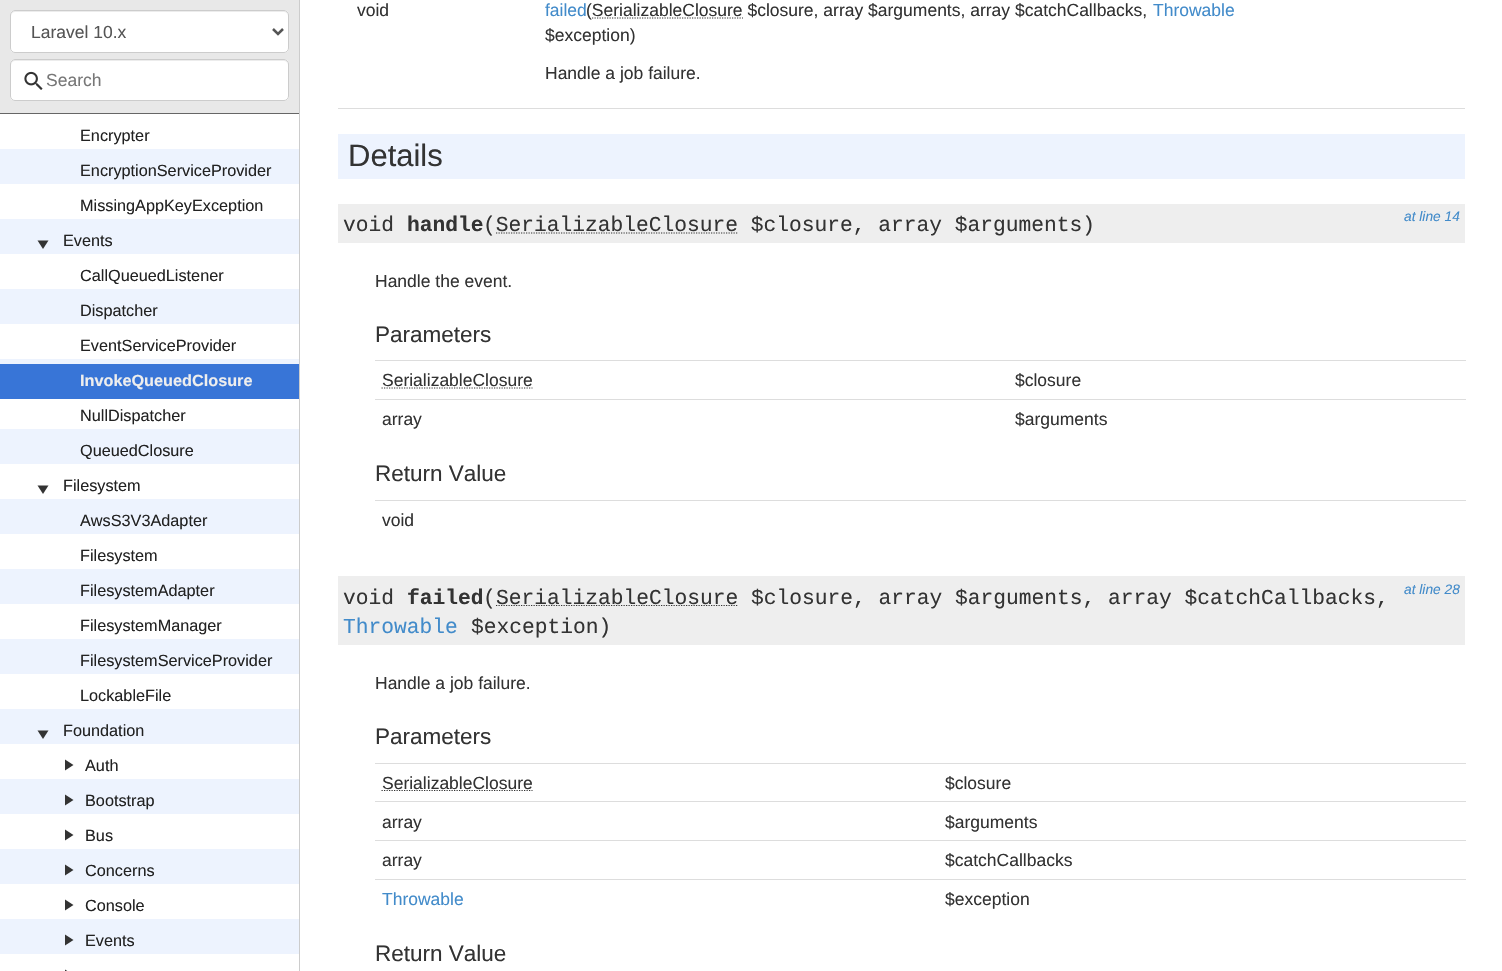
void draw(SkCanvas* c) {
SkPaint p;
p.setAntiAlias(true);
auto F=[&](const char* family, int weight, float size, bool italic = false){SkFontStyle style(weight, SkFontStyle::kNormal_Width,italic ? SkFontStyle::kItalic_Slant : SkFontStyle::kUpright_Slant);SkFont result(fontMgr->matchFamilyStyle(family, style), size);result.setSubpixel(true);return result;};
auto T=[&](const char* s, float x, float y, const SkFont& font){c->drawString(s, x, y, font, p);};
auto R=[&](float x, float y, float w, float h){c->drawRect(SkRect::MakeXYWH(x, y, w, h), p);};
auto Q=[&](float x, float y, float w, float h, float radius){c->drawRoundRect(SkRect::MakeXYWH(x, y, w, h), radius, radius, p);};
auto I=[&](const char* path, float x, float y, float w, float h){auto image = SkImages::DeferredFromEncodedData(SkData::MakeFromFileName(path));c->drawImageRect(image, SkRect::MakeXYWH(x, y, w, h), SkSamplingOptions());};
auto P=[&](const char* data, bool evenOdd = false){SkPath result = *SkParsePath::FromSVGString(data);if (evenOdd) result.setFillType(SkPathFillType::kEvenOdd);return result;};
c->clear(0xffffffff);
p.setColor(0xffcccccc);
R(299,0,1,971);
p.setColor(0xffe8e8e8);
R(0,0,299,113);
p.setColor(0xff666666);
R(0,113,299,1);
p.setColor(0xffffffff);
Q(10,10,279,43,5);
p.setColor(0xffececec);
c->drawPath(P("M15 12h269c2 0 4 2 4 4c0-3-1-5-4-5h-269c-3 0-4 2-4 5c0-2 2-4 4-4z"),p);
p.setStroke(true);
p.setStrokeWidth(1);
p.setColor(0xffcccccc);
c->drawRoundRect(SkRect::MakeXYWH(10.5,10.5,278,42),4.5,4.5,p);
p.setStrokeWidth(2.5);
p.setColor(0xff555555);
c->drawPath(P("M273 29l5 5l5-5"),p);
auto f1 = F("Liberation Sans",400,17.5);
p.setStroke(false);
T("Laravel 10.x",31,38,f1);
p.setColor(0xffffffff);
Q(10,59,279,42,5);
p.setColor(0xffececec);
c->drawPath(P("M15 61h269c2 0 4 2 4 4c0-3-1-5-4-5h-269c-3 0-4 2-4 5c0-2 2-4 4-4z"),p);
p.setStroke(true);
p.setStrokeWidth(1);
p.setColor(0xffcccccc);
c->drawRoundRect(SkRect::MakeXYWH(10.5,59.5,278,41),4.5,4.5,p);
I("1.png",24,71,19,19);
p.setStroke(false);
p.setColor(0xff777777);
T("Search",46,86,f1);
I("2.png",0,149,299,805);
auto f2 = F("Liberation Sans",400,16.25);
p.setColor(0xff222222);
T("Encrypter",80,141,f2);
T("EncryptionServiceProvider",80,176,f2);
T("MissingAppKeyException",80,211,f2);
p.setColor(0xff333333);
c->drawPath(P("M48.5 240.5h-11l5.5 8.5z"),p);
p.setColor(0xff222222);
T("Events",63,246,f2);
T("CallQueuedListener",80,281,f2);
T("Dispatcher",80,316,f2);
T("EventServiceProvider",80,351,f2);
p.setColor(0xff3875d7);
R(0,364,299,35);
auto f3 = F("Liberation Sans",700,16.25);
p.setColor(0xffeeeeee);
T("InvokeQueuedClosure",80,386,f3);
p.setColor(0xff222222);
T("NullDispatcher",80,421,f2);
T("QueuedClosure",80,456,f2);
p.setColor(0xff333333);
c->drawPath(P("M48.5 485.5h-11l5.5 8.5z"),p);
p.setColor(0xff222222);
T("Filesystem",63,491,f2);
T("AwsS3V3Adapter",80,526,f2);
T("Filesystem",80,561,f2);
T("FilesystemAdapter",80,596,f2);
T("FilesystemManager",80,631,f2);
T("FilesystemServiceProvider",80,666,f2);
T("LockableFile",80,701,f2);
p.setColor(0xff333333);
c->drawPath(P("M48.5 730.5h-11l5.5 8.5z"),p);
p.setColor(0xff222222);
T("Foundation",63,736,f2);
p.setColor(0xff333333);
c->drawPath(P("M65 759.5v11l8.5-5.5z"),p);
p.setColor(0xff222222);
T("Auth",85,771,f2);
p.setColor(0xff333333);
c->drawPath(P("M65 794.5v11l8.5-5.5z"),p);
p.setColor(0xff222222);
T("Bootstrap",85,806,f2);
p.setColor(0xff333333);
c->drawPath(P("M65 829.5v11l8.5-5.5z"),p);
p.setColor(0xff222222);
T("Bus",85,841,f2);
p.setColor(0xff333333);
c->drawPath(P("M65 864.5v11l8.5-5.5z"),p);
p.setColor(0xff222222);
T("Concerns",85,876,f2);
p.setColor(0xff333333);
c->drawPath(P("M65 899.5v11l8.5-5.5z"),p);
p.setColor(0xff222222);
T("Console",85,911,f2);
p.setColor(0xff333333);
c->drawPath(P("M65 934.5v11l8.5-5.5z"),p);
p.setColor(0xff222222);
T("Events",85,946,f2);
p.setColor(0xff333333);
c->drawPath(P("M65 969.5v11l8.5-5.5z"),p);
p.setColor(0xffdddddd);
R(338,108,1127,1);
p.setColor(0xff333333);
T("void",357,16,f1);
p.setColor(0xff428bca);
T("failed",545,16,f1);
p.setColor(0xff333333);
T("(SerializableClosure $closure, array $arguments, array $catchCallbacks,",586,16,f1);
p.setColor(0xff428bca);
T("Throwable",1153,16,f1);
p.setStroke(true);
p.setStrokeWidth(1.2);
p.setColor(0xff333333);
p.setPathEffect(SkDashPathEffect::Make({{1.25f,1.25f}}, 0));
c->drawPath(P("M592 18h151"),p);
p.setPathEffect(nullptr);
p.setStroke(false);
T("$exception)",545,41,f1);
T("Handle a job failure.",545,79,f1);
p.setColor(0xffedf3fe);
R(338,134,1127,45);
auto f4 = F("Liberation Sans",400,31);
p.setColor(0xff333333);
T("Details",348,166,f4);
p.setColor(0xffeeeeee);
R(338,204,1127,39);
auto f5 = F("Liberation Mono",400,21.25);
p.setColor(0xff333333);
T("void",343,231,f5);
auto f6 = F("Liberation Mono",700,21.25);
T("handle",407,231,f6);
T("(SerializableClosure $closure, array $arguments)",483,231,f5);
p.setStroke(true);
p.setPathEffect(SkDashPathEffect::Make({{1.25f,1.25f}}, 0));
c->drawPath(P("M496 233h242.5"),p);
p.setPathEffect(nullptr);
auto f7 = F("Liberation Sans",400,13.75,true);
p.setStroke(false);
p.setColor(0xff428bca);
T("at line 14",1404,221,f7);
p.setColor(0xff333333);
T("Handle the event.",375,287,f1);
auto f8 = F("Liberation Sans",400,22.5);
T("Parameters",375,342,f8);
p.setColor(0xffdddddd);
R(375,360,1091,1);
p.setColor(0xff333333);
T("SerializableClosure",382,386,f1);
p.setStroke(true);
p.setPathEffect(SkDashPathEffect::Make({{1.25f,1.25f}}, 0));
c->drawPath(P("M381.5 388h151"),p);
p.setPathEffect(nullptr);
p.setStroke(false);
T("$closure",1015,386,f1);
p.setColor(0xffdddddd);
R(375,399,1091,1);
p.setColor(0xff333333);
T("array",382,425,f1);
T("$arguments",1015,425,f1);
T("Return Value",375,481,f8);
p.setColor(0xffdddddd);
R(375,500,1091,1);
p.setColor(0xff333333);
T("void",382,526,f1);
p.setColor(0xffeeeeee);
R(338,576,1127,69);
p.setColor(0xff333333);
T("void",343,604,f5);
T("failed",407,604,f6);
T("(",483,604,f5);
p.setStroke(true);
p.setPathEffect(SkDashPathEffect::Make({{1.25f,1.25f}}, 0));
c->drawPath(P("M496 605.5h242.5"),p);
p.setPathEffect(nullptr);
p.setStroke(false);
T("SerializableClosure $closure, array $arguments, array $catchCallbacks,",496,604,f5);
p.setColor(0xff428bca);
T("at line 28",1404,594,f7);
T("Throwable",343,633,f5);
p.setColor(0xff333333);
T("$exception)",471,633,f5);
T("Handle a job failure.",375,689,f1);
T("Parameters",375,744,f8);
p.setColor(0xffdddddd);
R(375,763,1091,1);
p.setStroke(true);
p.setColor(0xff333333);
p.setPathEffect(SkDashPathEffect::Make({{1.25f,1.25f}}, 0));
c->drawPath(P("M381.5 790.5h151"),p);
p.setPathEffect(nullptr);
p.setStroke(false);
T("SerializableClosure",382,789,f1);
T("$closure",945,789,f1);
p.setColor(0xffdddddd);
R(375,801,1091,1);
p.setColor(0xff333333);
T("array",382,828,f1);
T("$arguments",945,828,f1);
p.setColor(0xffdddddd);
R(375,840,1091,1);
p.setColor(0xff333333);
T("array",382,866,f1);
T("$catchCallbacks",945,866,f1);
p.setColor(0xffdddddd);
R(375,879,1091,1);
p.setColor(0xff428bca);
T("Throwable",382,905,f1);
p.setColor(0xff333333);
T("$exception",945,905,f1);
T("Return Value",375,961,f8);
}
